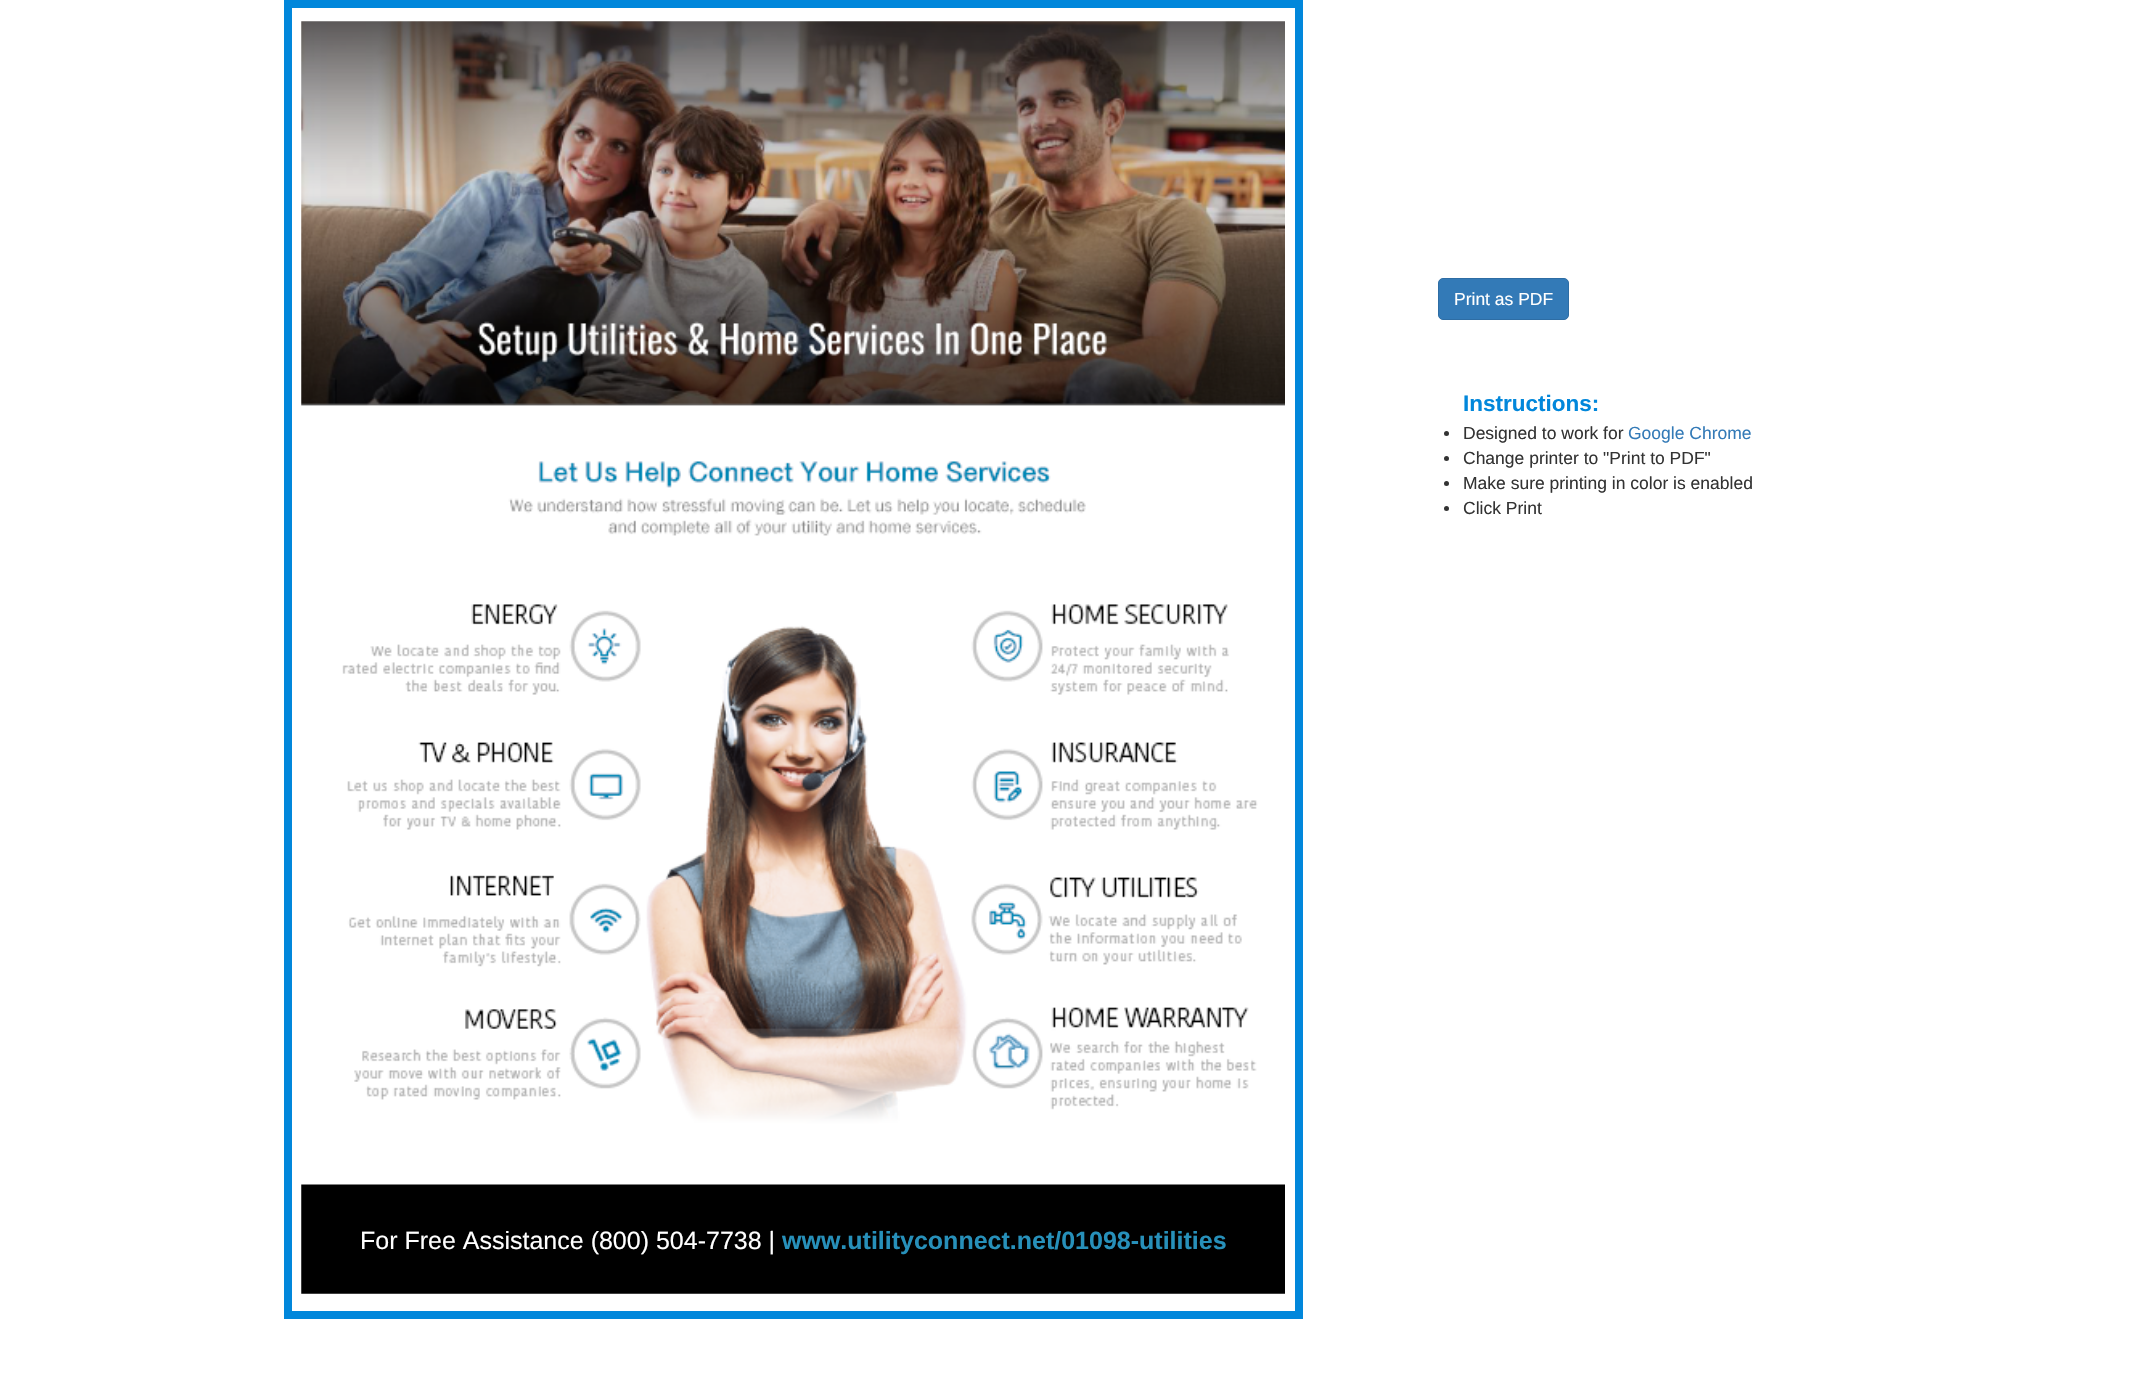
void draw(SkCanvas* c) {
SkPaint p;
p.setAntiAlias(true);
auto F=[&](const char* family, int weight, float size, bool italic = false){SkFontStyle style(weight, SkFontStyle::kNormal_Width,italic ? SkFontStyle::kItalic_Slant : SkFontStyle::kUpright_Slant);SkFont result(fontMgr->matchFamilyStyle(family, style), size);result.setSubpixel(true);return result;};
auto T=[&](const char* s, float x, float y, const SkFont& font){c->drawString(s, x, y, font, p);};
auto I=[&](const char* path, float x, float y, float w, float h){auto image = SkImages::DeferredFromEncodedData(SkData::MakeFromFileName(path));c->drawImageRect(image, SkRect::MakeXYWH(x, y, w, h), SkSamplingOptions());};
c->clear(0xffffffff);
p.setColor(0xff337ab7);
c->drawRoundRect(SkRect::MakeXYWH(1438.5,278.5,130,41),4.5,4.5,p);
p.setStroke(true);
p.setStrokeWidth(1);
p.setColor(0xff2e6da4);
c->drawRoundRect(SkRect::MakeXYWH(1438.5,278.5,130,41),4.5,4.5,p);
auto f1 = F("Liberation Sans",400,17.5);
p.setStroke(false);
p.setColor(0xffffffff);
T("Print as PDF",1454,305,f1);
auto f2 = F("Liberation Sans",700,22.5);
p.setColor(0xff0187db);
T("Instructions:",1463,411,f2);
p.setColor(0xff333333);
c->drawCircle(1446.5,433.5,2.5,p);
T("Designed to work for",1463,439,f1);
p.setColor(0xff337ab7);
T("Google Chrome",1628,439,f1);
p.setColor(0xff333333);
c->drawCircle(1446.5,458.5,2.5,p);
T("Change printer to \"Print to PDF\"",1463,464,f1);
c->drawCircle(1446.5,483.5,2.5,p);
T("Make sure printing in color is enabled",1463,489,f1);
c->drawCircle(1446.5,508.5,2.5,p);
T("Click Print",1463,514,f1);
p.setStroke(true);
p.setStrokeWidth(8);
p.setColor(0xff0187db);
c->drawRect(SkRect::MakeXYWH(288,4,1011,1311),p);
I("1.png",301,21,984,1273);
auto f3 = F("Liberation Sans",400,25);
p.setStroke(false);
p.setColor(0xffffffff);
T("For Free Assistance (800) 504-7738 |",360,1249,f3);
auto f4 = F("Liberation Sans",700,25);
p.setColor(0xff2790ba);
T("www.utilityconnect.net/01098-utilities",782,1249,f4);
}
